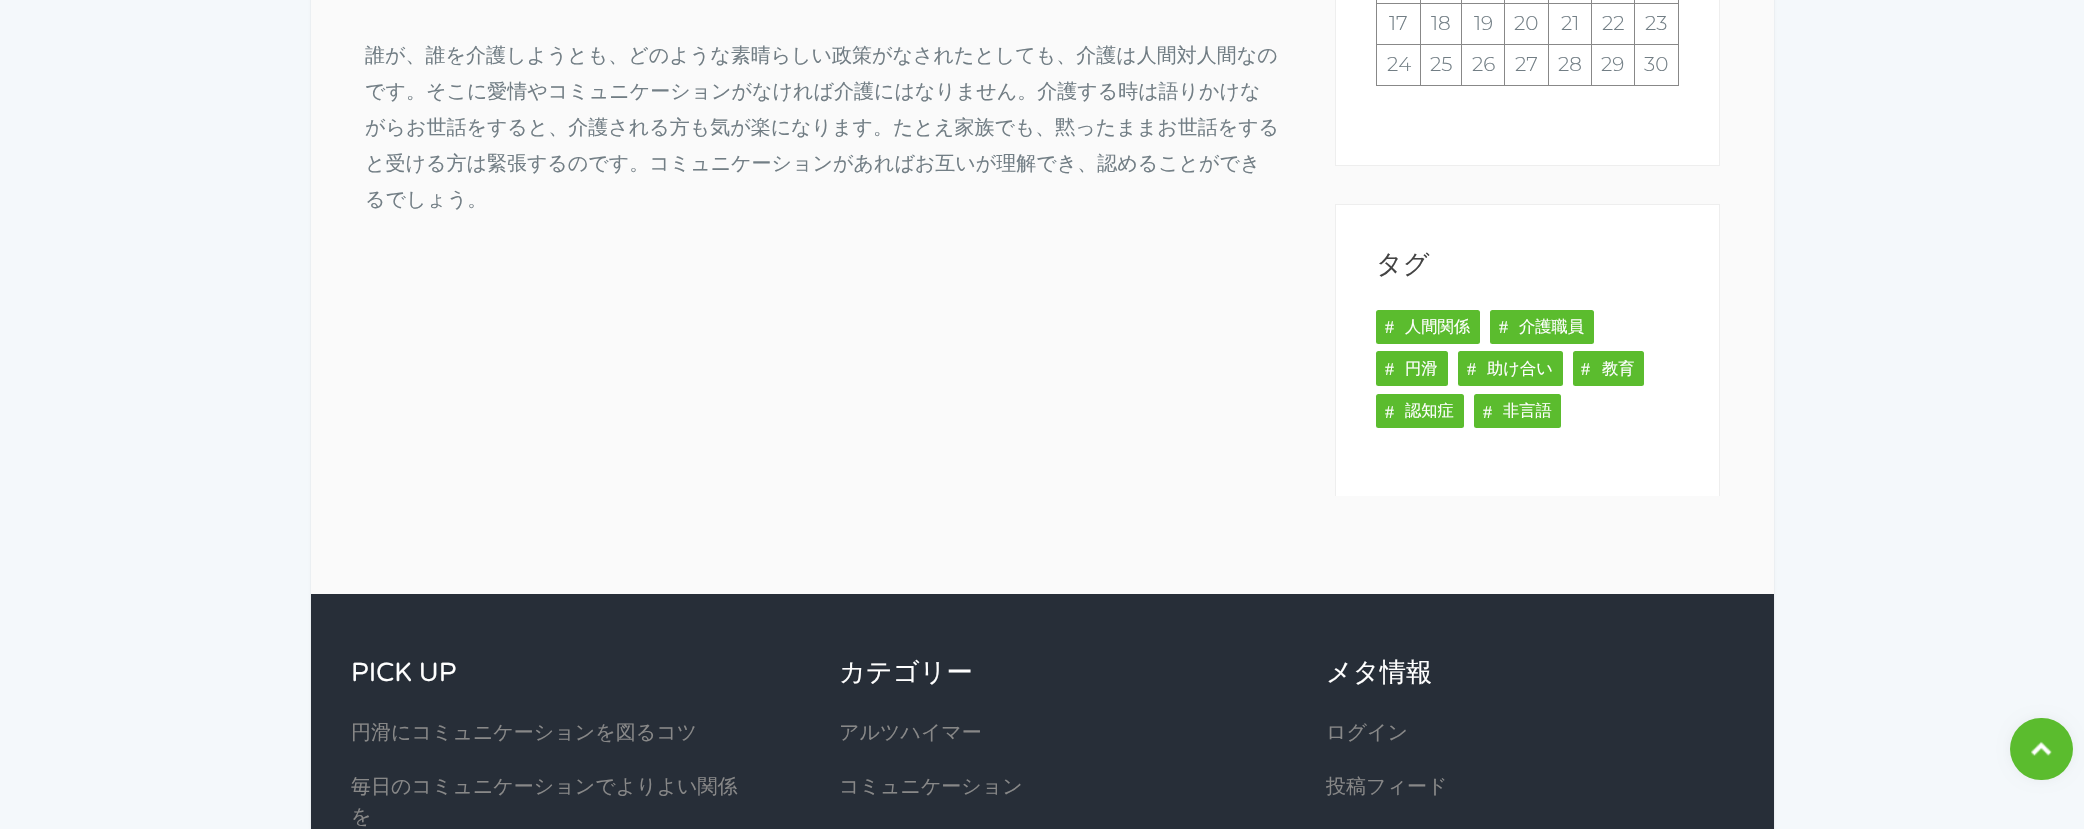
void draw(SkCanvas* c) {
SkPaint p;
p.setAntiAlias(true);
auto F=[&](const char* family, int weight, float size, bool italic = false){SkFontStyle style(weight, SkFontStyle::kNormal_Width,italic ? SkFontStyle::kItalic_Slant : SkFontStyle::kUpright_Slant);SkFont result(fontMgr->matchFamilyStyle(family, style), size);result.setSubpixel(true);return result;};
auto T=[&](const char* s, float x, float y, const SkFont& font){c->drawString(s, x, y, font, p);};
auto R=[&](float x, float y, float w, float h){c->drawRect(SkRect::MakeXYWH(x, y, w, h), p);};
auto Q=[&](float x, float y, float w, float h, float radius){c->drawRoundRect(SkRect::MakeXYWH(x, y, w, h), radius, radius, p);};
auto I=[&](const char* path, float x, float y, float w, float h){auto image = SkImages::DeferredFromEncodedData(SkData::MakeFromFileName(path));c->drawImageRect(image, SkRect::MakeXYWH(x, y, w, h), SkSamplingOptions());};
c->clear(0xfff4f8fb);
p.setColor(0x1a000000);
p.setMaskFilter(SkMaskFilter::MakeBlur(kNormal_SkBlurStyle, 1));
c->drawRect(SkRect::MakeXYWH(311,-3,1463,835),p);
p.setMaskFilter(nullptr);
p.setColor(0xfffafafa);
R(311,0,1463,594);
auto f1 = F("WenQuanYi Zen Hei",500,20);
p.setColor(0xff727e85);
T("誰が、誰を介護しようとも、どのような素晴らしい政策がなされたとしても、介護は人間対人間なの",365,62,f1);
T("です。そこに愛情やコミュニケーションがなければ介護にはなりません。介護する時は語りかけな",365,98,f1);
T("がらお世話をすると、介護される方も気が楽になります。たとえ家族でも、黙ったままお世話をする",365,134,f1);
T("と受ける方は緊張するのです。コミュニケーションがあればお互いが理解でき、認めることができ",365,170,f1);
T("るでしょう。",365,206,f1);
p.setColor(0xffffffff);
c->drawRect(SkRect::MakeXYWH(1335.5,-.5,384,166),p);
p.setStroke(true);
p.setStrokeWidth(1);
p.setColor(0xffeeeeee);
c->drawRect(SkRect::MakeXYWH(1335.5,-.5,384,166),p);
p.setStroke(false);
p.setColor(0xff888888);
R(1634,3,45,1);
R(1634,44,45,1);
R(1678,44,1,42);
R(1634,85,45,1);
R(1634,44,1,42);
R(1591,44,44,1);
R(1634,3,1,42);
R(1591,3,44,1);
R(1591,85,44,1);
R(1591,44,1,42);
R(1548,44,45,1);
R(1591,3,1,42);
R(1548,3,45,1);
R(1548,85,45,1);
R(1548,44,1,42);
R(1504,44,45,1);
R(1548,3,1,42);
R(1504,3,45,1);
R(1504,85,45,1);
R(1504,44,1,42);
R(1461,44,44,1);
R(1504,3,1,42);
R(1461,3,44,1);
R(1461,85,44,1);
R(1461,44,1,42);
R(1420,44,43,1);
R(1461,3,1,42);
R(1420,3,43,1);
R(1420,85,43,1);
R(1420,44,1,42);
R(1376,44,45,1);
R(1420,3,1,42);
R(1376,3,45,1);
R(1420,0,1,4);
R(1461,0,1,4);
R(1504,0,1,4);
R(1548,0,1,4);
R(1591,0,1,4);
R(1634,0,1,4);
R(1376,85,45,1);
R(1376,44,1,42);
R(1376,0,1,45);
auto f2 = F("Montserrat",300,20);
p.setColor(0xff727e85);
T("17",1389,30,f2);
T("18",1431,30,f2);
T("19",1474,30,f2);
T("20",1514,30,f2);
T("21",1561,30,f2);
T("22",1602,30,f2);
p.setColor(0xff888888);
R(1678,0,1,45);
p.setColor(0xff727e85);
T("23",1645,30,f2);
T("24",1387,71,f2);
T("25",1430,71,f2);
T("26",1472,71,f2);
T("27",1515,71,f2);
T("28",1558,71,f2);
T("29",1601,71,f2);
T("30",1644,71,f2);
p.setColor(0xffffffff);
R(1336,205,383,291);
p.setColor(0xffeeeeee);
R(1335,204,385,1);
R(1719,204,1,292);
R(1335,204,1,292);
auto f3 = F("WenQuanYi Zen Hei",500,26.25);
p.setColor(0xff444444);
T("タグ",1376,273,f3);
p.setColor(0xff5bbc2e);
Q(1376,310,104,34,2.5);
auto f4 = F("Liberation Serif",400,18);
p.setColor(0xffffffff);
T("#",1385,333,f4);
auto f5 = F("WenQuanYi Zen Hei",500,16.25);
T("人間関係",1405,332,f5);
p.setColor(0xff5bbc2e);
Q(1490,310,104,34,2.5);
p.setColor(0xffffffff);
T("#",1499,333,f4);
T("介護職員",1519,332,f5);
p.setColor(0xff5bbc2e);
Q(1376,351,72,35,2.5);
p.setColor(0xffffffff);
T("#",1385,375,f4);
T("円滑",1405,374,f5);
p.setColor(0xff5bbc2e);
Q(1458,351,105,35,2.5);
p.setColor(0xffffffff);
T("#",1467,375,f4);
T("助け合い",1487,374,f5);
p.setColor(0xff5bbc2e);
Q(1573,351,71,35,2.5);
p.setColor(0xffffffff);
T("#",1581,375,f4);
T("教育",1602,374,f5);
p.setColor(0xff5bbc2e);
Q(1376,394,88,34,2.5);
p.setColor(0xffffffff);
T("#",1385,418,f4);
T("認知症",1405,416,f5);
p.setColor(0xff5bbc2e);
Q(1474,394,87,34,2.5);
p.setColor(0xffffffff);
T("#",1483,418,f4);
T("非言語",1503,416,f5);
p.setColor(0xff272e38);
R(311,594,1463,235);
auto f6 = F("Varela Round",400,26.25);
p.setColor(0xffffffff);
T("PICK UP",351,681,f6);
p.setColor(0xff888888);
T("円滑にコミュニケーションを図るコツ",351,739,f1);
T("毎日のコミュニケーションでよりよい関係",351,793,f1);
T("を",351,823,f1);
p.setColor(0xffffffff);
T("カテゴリー",839,681,f3);
p.setColor(0xff888888);
T("アルツハイマー",839,739,f1);
T("コミュニケーション",839,793,f1);
p.setColor(0xffffffff);
T("メタ情報",1326,681,f3);
p.setColor(0xff888888);
T("ログイン",1326,739,f1);
T("投稿フィード",1326,793,f1);
p.setColor(0x0d000000);
p.setMaskFilter(SkMaskFilter::MakeBlur(kNormal_SkBlurStyle, 6));
c->drawRoundRect(SkRect::MakeXYWH(2010,718,63,62),31,31,p);
p.setMaskFilter(nullptr);
p.setColor(0xff5bbc2e);
Q(2010,718,63,62,31);
I("1.png",2031,741,21,15);
}
